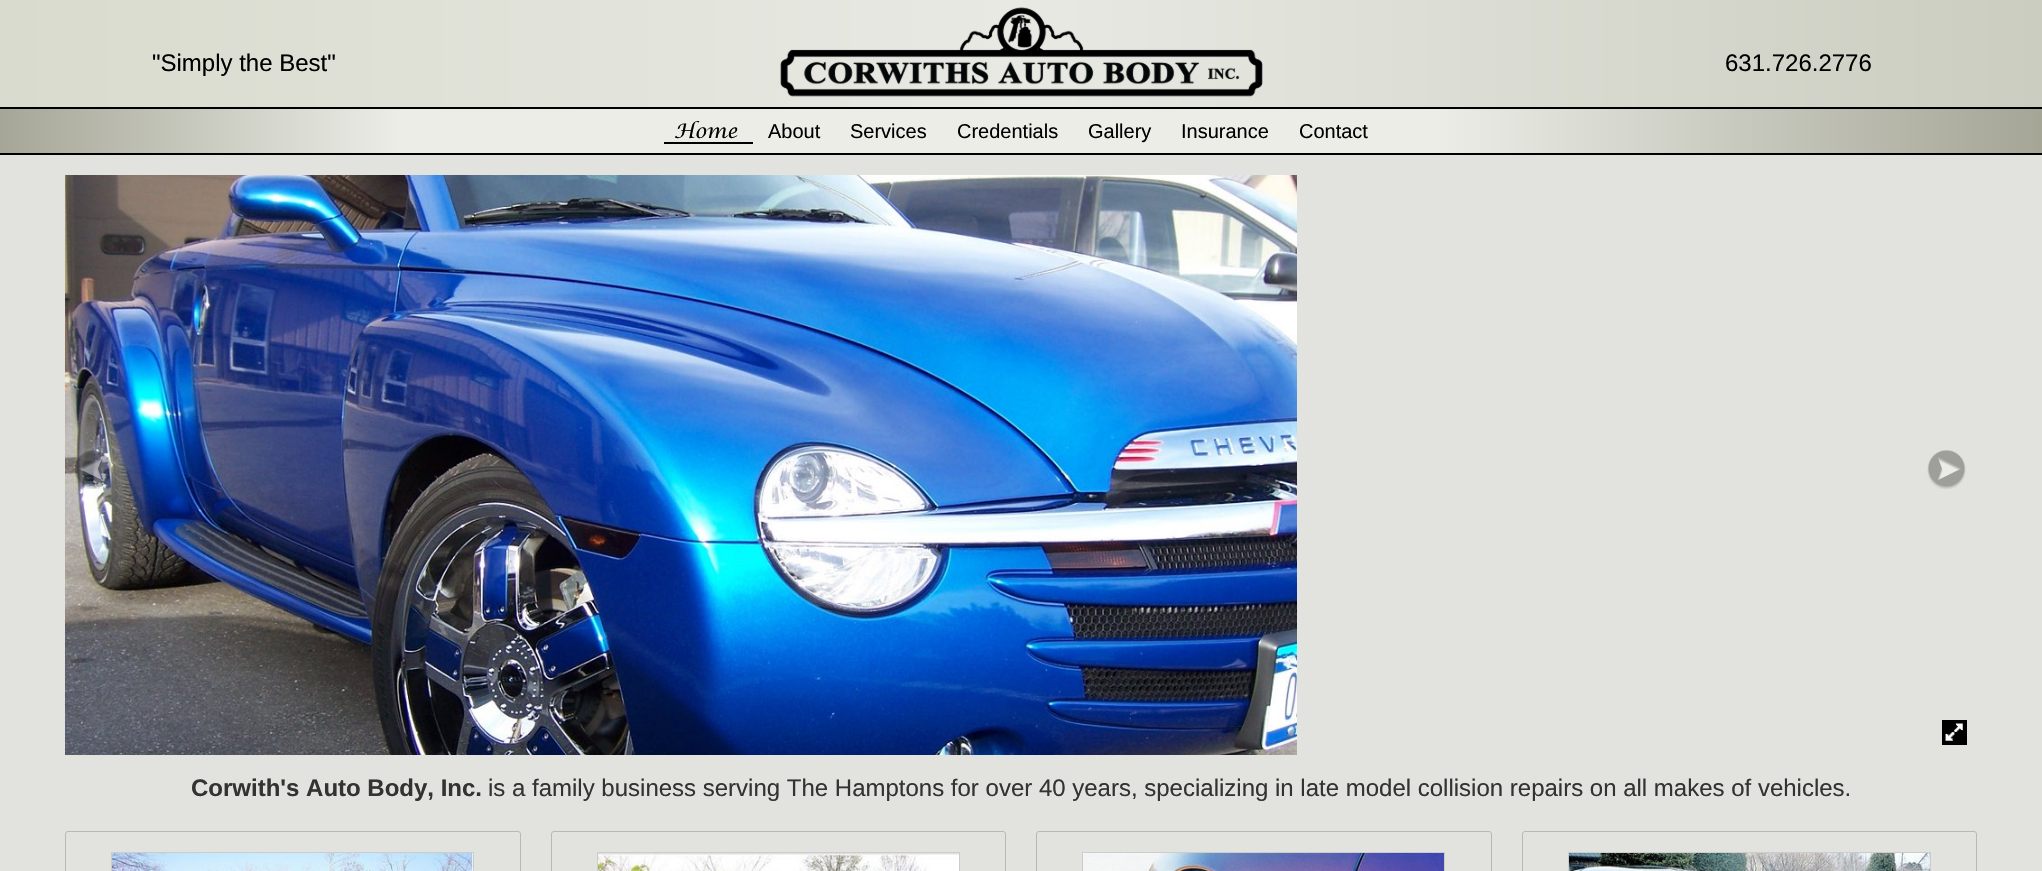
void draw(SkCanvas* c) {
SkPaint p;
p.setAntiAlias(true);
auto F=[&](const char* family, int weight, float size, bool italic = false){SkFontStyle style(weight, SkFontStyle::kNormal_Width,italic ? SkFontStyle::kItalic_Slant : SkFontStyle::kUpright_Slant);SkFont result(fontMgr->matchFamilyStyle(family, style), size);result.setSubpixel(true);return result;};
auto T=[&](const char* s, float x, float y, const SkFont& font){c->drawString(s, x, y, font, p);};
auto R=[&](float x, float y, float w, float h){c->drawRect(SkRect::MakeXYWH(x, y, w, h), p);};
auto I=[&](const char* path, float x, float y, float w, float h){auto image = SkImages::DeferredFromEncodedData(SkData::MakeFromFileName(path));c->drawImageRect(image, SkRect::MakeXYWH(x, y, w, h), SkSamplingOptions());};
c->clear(0xffe2e3de);
{
const SkColor colors[] = {0xffd9dbce,0xffe8e9e3,0xffcbcdc0};
const float stops[] = {0,.5,1};
const SkPoint ends[] = {{0,0}, {2042,0}};
p.setShader(SkGradientShader::MakeLinear(ends, colors, stops, 3, SkTileMode::kClamp));
p.setAlpha(255);
}
R(0,0,2042,107);
auto f1 = F("Liberation Sans",400,24);
p.setShader(nullptr);
p.setColor(0xff000000);
T("\"Simply the Best\"",152,71,f1);
I("1.png",780,7,483,90);
T("631.726.2776",1725,71,f1);
{
const SkColor colors[] = {0xffa3a494,0xffecede7,0xffecede7,0xffa3a494};
const float stops[] = {0,.2,.7,1};
const SkPoint ends[] = {{-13,109}, {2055,109}};
p.setShader(SkGradientShader::MakeLinear(ends, colors, stops, 4, SkTileMode::kClamp));
p.setAlpha(255);
}
R(0,109,2042,44);
p.setStroke(true);
p.setStrokeWidth(2);
p.setShader(nullptr);
p.setColor(0xff000000);
c->drawRect(SkRect::MakeXYWH(-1,108,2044,46),p);
p.setStroke(false);
R(664,142,89,2);
auto f2 = F("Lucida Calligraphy",400,20);
T("Home",674,138,f2);
auto f3 = F("Liberation Sans",400,20);
T("About",768,138,f3);
T("Services",850,138,f3);
T("Credentials",957,138,f3);
T("Gallery",1088,138,f3);
T("Insurance",1181,138,f3);
T("Contact",1299,138,f3);
I("2.png",65,175,1232,580);
I("3.png",75,450,37,39);
I("4.png",1927,450,39,39);
R(1942,720,25,25);
I("5.png",1945,723,18,18);
auto f4 = F("Liberation Sans",700,24);
p.setColor(0xff333333);
T("Corwith's Auto Body, Inc.",191,796,f4);
T("is a family business serving The Hamptons for over 40 years, specializing in late model collision repairs on all makes of vehicles.",488,796,f1);
p.setStroke(true);
p.setStrokeWidth(1);
p.setColor(0xffb8b8b8);
c->drawRoundRect(SkRect::MakeXYWH(65.5,831.5,455,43),2.5,2.5,p);
p.setColor(0xffcccccc);
c->drawRect(SkRect::MakeXYWH(111.5,852.5,362,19),p);
I("6.png",112,853,361,18);
p.setColor(0xffb8b8b8);
c->drawRoundRect(SkRect::MakeXYWH(551.5,831.5,454,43),2.5,2.5,p);
p.setColor(0xffcccccc);
c->drawRect(SkRect::MakeXYWH(597.5,852.5,362,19),p);
I("7.png",598,853,361,18);
p.setColor(0xffb8b8b8);
c->drawRoundRect(SkRect::MakeXYWH(1036.5,831.5,455,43),2.5,2.5,p);
p.setColor(0xffcccccc);
c->drawRect(SkRect::MakeXYWH(1082.5,852.5,362,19),p);
I("8.png",1083,853,361,18);
p.setColor(0xffb8b8b8);
c->drawRoundRect(SkRect::MakeXYWH(1522.5,831.5,454,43),2.5,2.5,p);
p.setColor(0xffcccccc);
c->drawRect(SkRect::MakeXYWH(1568.5,852.5,362,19),p);
I("9.png",1569,853,361,18);
}
